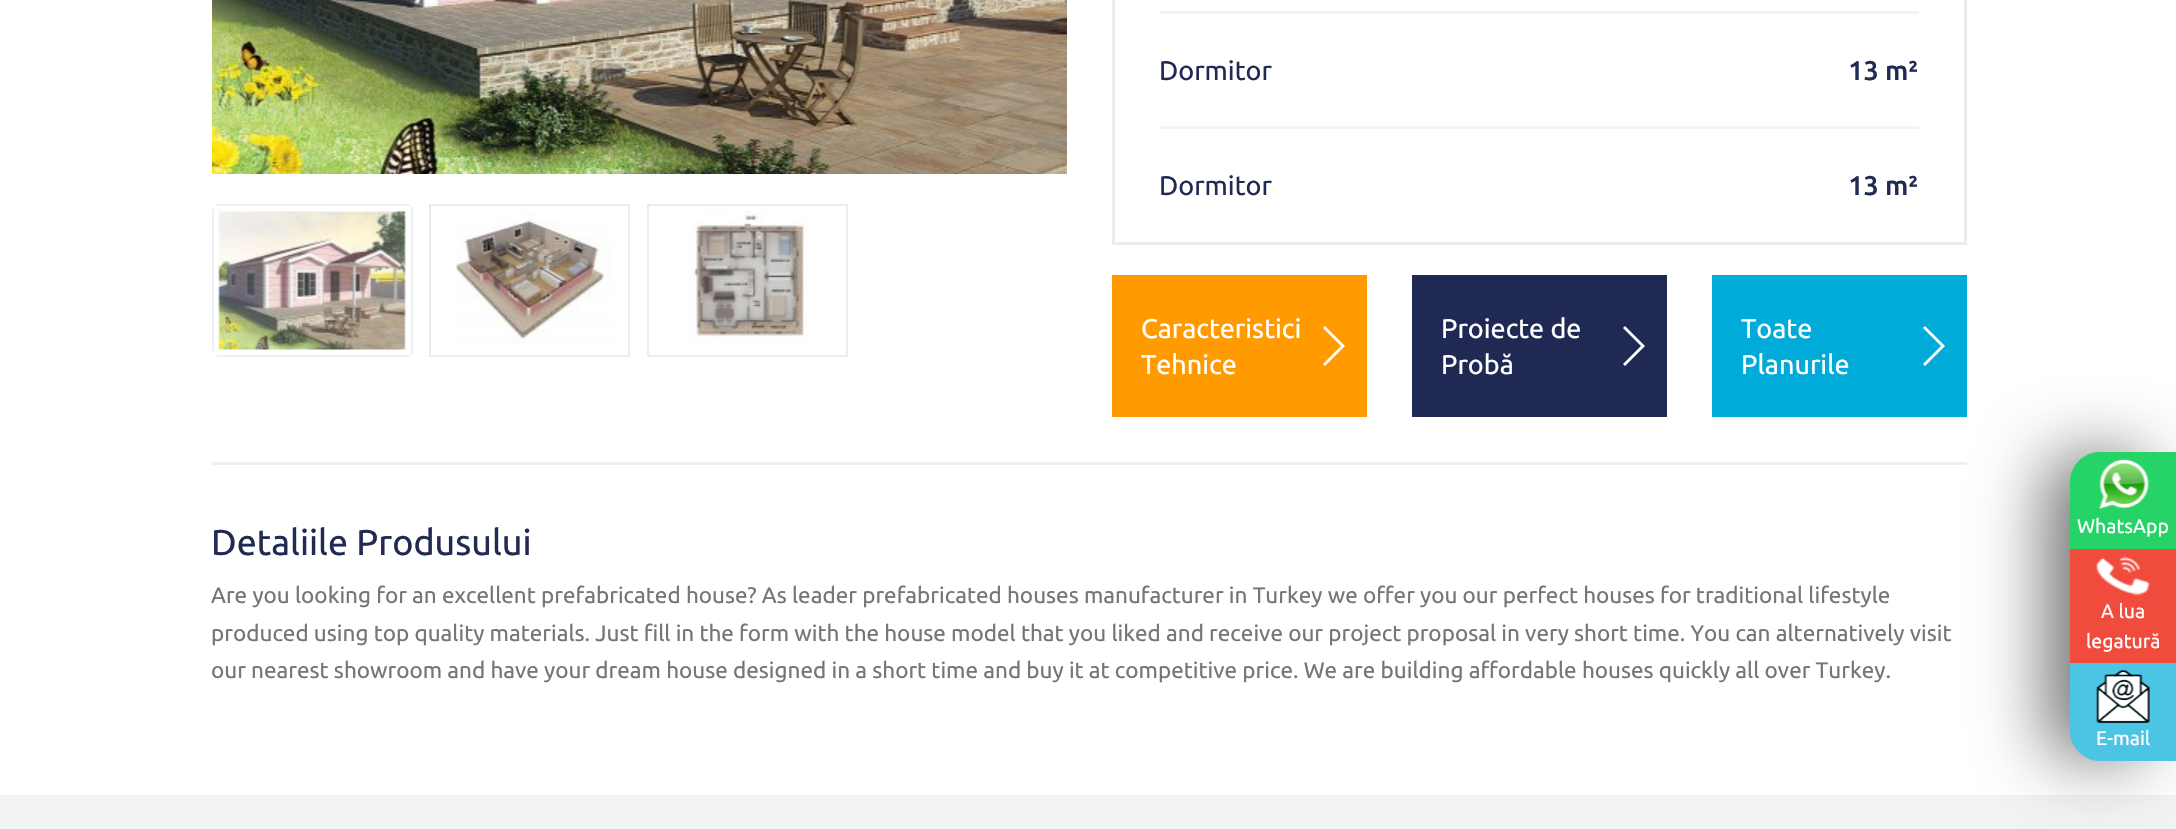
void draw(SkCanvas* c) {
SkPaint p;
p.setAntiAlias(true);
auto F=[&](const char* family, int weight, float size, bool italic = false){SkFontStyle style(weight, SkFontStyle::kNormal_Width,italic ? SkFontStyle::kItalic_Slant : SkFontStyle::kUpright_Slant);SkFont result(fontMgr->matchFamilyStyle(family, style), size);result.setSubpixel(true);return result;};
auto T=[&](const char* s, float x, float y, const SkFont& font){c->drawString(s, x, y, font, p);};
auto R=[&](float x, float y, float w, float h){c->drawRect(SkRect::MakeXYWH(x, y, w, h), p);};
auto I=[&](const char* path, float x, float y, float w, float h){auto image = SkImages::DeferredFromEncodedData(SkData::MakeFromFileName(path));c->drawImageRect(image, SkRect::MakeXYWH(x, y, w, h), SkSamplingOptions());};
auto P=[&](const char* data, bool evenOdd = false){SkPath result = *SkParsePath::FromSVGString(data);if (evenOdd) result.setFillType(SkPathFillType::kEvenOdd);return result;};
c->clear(0xffffffff);
I("1.png",212,0,855,174);
p.setColor(0xffedf1f5);
c->drawPath(P("M212 212v137c0 2 1 4 2 5v-147c-1 1-2 3-2 5zm8-8c-2 0-4 1-5 2h196v149h-196c1 1 3 2 5 2h186c3 0 6-2 7-4v-145c-1-2-4-4-7-4z",true),p);
I("2.png",218,211,188,139);
p.setStroke(true);
p.setStrokeWidth(2);
p.setColor(0xffe9edf2);
c->drawRect(SkRect::MakeXYWH(430,205,199,151),p);
I("3.png",455,213,158,132);
c->drawRect(SkRect::MakeXYWH(648,205,199,151),p);
I("4.png",689,211,120,134);
p.setStrokeWidth(3);
c->drawRect(SkRect::MakeXYWH(1113.5,-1.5,852,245),p);
p.setStroke(false);
p.setColor(0xfff0f3f8);
R(1160,11,759,3);
R(1160,126,759,3);
auto f1 = F("Ubuntu",400,27);
p.setColor(0xff212a53);
T("Dormitor",1159,80,f1);
auto f2 = F("Ubuntu",500,27);
T("13 m²",1848,80,f2);
T("Dormitor",1159,195,f1);
T("13 m²",1848,195,f2);
p.setColor(0xffff9b00);
R(1112,275,255,142);
p.setColor(0xffffffff);
T("Caracteristici",1141,338,f1);
T("Tehnice",1141,374,f1);
c->drawPath(P("M1325 326l-2 2l20 20l2-2zm-2 38l2 2l20-20l-2-2z"),p);
p.setColor(0xff202954);
R(1412,275,255,142);
p.setColor(0xffffffff);
T("Proiecte de",1441,338,f1);
T("Probă",1441,374,f1);
c->drawPath(P("M1625 326l-2 2l20 20l2-2zm-2 38l2 2l20-20l-2-2z"),p);
p.setColor(0xff00aad9);
R(1712,275,255,142);
p.setColor(0xffffffff);
T("Toate",1741,338,f1);
T("Planurile",1741,374,f1);
c->drawPath(P("M1925 326l-2 2l20 20l2-2zm-2 38l2 2l20-20l-2-2z"),p);
p.setColor(0xffedeff1);
R(212,462,1755,3);
auto f3 = F("Ubuntu",400,36);
p.setColor(0xff212a53);
T("Detaliile Produsului",211,555,f3);
auto f4 = F("Ubuntu",400,22.5);
p.setColor(0xff767676);
T("Are you looking for an excellent prefabricated house? As leader prefabricated houses manufacturer in Turkey we offer you our perfect houses for traditional lifestyle",211,603,f4);
T("produced using top quality materials. Just fill in the form with the house model that you liked and receive our project proposal in very short time. You can alternatively visit",211,641,f4);
T("our nearest showroom and have your dream house designed in a short time and buy it at competitive price. We are building affordable houses quickly all over Turkey.",211,678,f4);
p.setColor(0xfff1f3f5);
R(0,795,2176,34);
p.setColor(0x8c000000);
p.setMaskFilter(SkMaskFilter::MakeBlur(kNormal_SkBlurStyle, 34.5));
c->drawRoundRect(SkRect::MakeXYWH(2046,455,101,303),27,27,p);
p.setMaskFilter(nullptr);
p.setColor(0xff25d366);
c->drawPath(P("M2100 452h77v97h-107v-67c0-16.5 13.5-30 30-30z"),p);
I("5.png",2097,459,52,52);
auto f5 = F("Ubuntu",400,19.5);
p.setColor(0xffffffff);
T("WhatsApp",2077,533,f5);
p.setColor(0xfff14b3d);
R(2070,549,106,114);
I("6.png",2096,556,54,40);
p.setColor(0xffffffff);
T("A lua",2101,618,f5);
T("legatură",2086,648,f5);
p.setColor(0xff4cc4e3);
c->drawPath(P("M2070 663h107v98h-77c-16.5 0-30-13.5-30-30z"),p);
I("7.png",2096,670,54,53);
p.setColor(0xffffffff);
T("E-mail",2096,745,f5);
}
